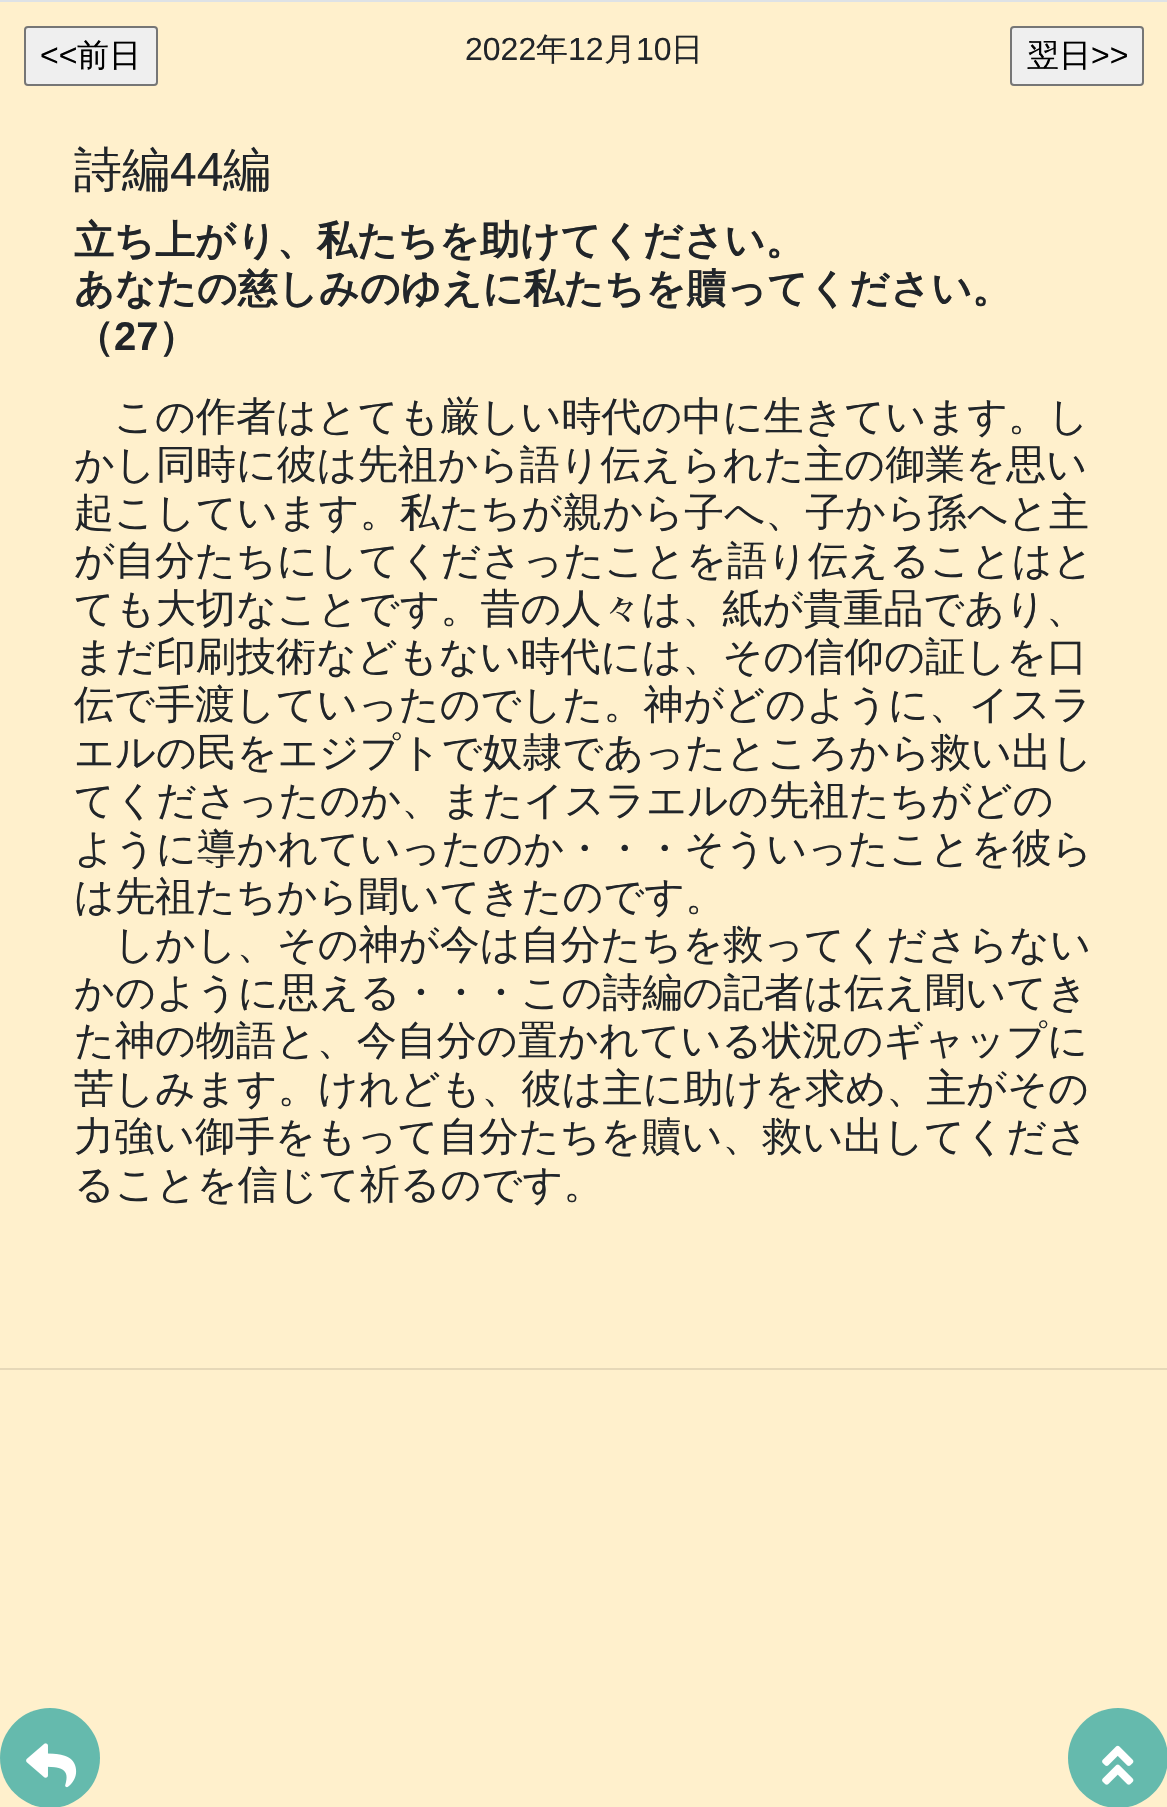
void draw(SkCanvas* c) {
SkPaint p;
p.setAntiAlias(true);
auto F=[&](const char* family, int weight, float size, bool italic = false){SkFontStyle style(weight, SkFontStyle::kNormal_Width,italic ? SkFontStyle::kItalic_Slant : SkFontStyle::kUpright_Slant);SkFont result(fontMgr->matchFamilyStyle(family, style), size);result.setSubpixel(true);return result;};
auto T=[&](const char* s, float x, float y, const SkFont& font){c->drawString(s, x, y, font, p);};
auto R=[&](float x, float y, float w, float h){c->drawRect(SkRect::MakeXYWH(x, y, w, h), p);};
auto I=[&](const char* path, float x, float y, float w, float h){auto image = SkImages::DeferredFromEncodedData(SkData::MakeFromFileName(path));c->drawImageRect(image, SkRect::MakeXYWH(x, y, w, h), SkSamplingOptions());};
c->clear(0xfffff0cc);
p.setColor(0xffefefef);
c->drawRoundRect(SkRect::MakeXYWH(25,27,132,58),3,3,p);
p.setStroke(true);
p.setStrokeWidth(2);
p.setColor(0xff767676);
c->drawRoundRect(SkRect::MakeXYWH(25,27,132,58),3,3,p);
auto f1 = F("Liberation Sans",400,32);
p.setStroke(false);
p.setColor(0xff000000);
T("<<",40,66,f1);
auto f2 = F("WenQuanYi Zen Hei",500,32);
T("前日",77,66,f2);
p.setColor(0xff212529);
T("2022",465,60,f1);
T("年",536,60,f2);
T("12",568,60,f1);
T("月",604,60,f2);
T("10",636,60,f1);
T("日",671,60,f2);
p.setColor(0xffdee2e6);
R(0,0,1167,2);
p.setColor(0xffefefef);
c->drawRoundRect(SkRect::MakeXYWH(1011,27,132,58),3,3,p);
p.setStroke(true);
p.setColor(0xff767676);
c->drawRoundRect(SkRect::MakeXYWH(1011,27,132,58),3,3,p);
p.setStroke(false);
p.setColor(0xff000000);
T("翌日",1027,66,f2);
T(">>",1091,66,f1);
auto f3 = F("WenQuanYi Zen Hei",500,48);
p.setColor(0xff212529);
T("詩編",74,186,f3);
auto f4 = F("Liberation Sans",400,48);
T("44",170,186,f4);
T("編",223,186,f3);
auto f5 = F("WenQuanYi Zen Hei",700,40);
T("立ち上がり、私たちを助けてください。",74,254,f5);
T("あなたの慈しみのゆえに私たちを贖ってください。",74,302,f5);
T("（",74,350,f5);
auto f6 = F("Liberation Sans",700,40);
T("27",114,350,f6);
T("）",158,350,f5);
auto f7 = F("WenQuanYi Zen Hei",500,40);
T("この作者はとても厳しい時代の中に生きています。し",114,430,f7);
T("かし同時に彼は先祖から語り伝えられた主の御業を思い",74,478,f7);
T("起こしています。私たちが親から子へ、子から孫へと主",74,526,f7);
T("が自分たちにしてくださったことを語り伝えることはと",74,574,f7);
T("ても大切なことです。昔の人々は、紙が貴重品であり、",74,622,f7);
T("まだ印刷技術などもない時代には、その信仰の証しを口",74,670,f7);
T("伝で手渡していったのでした。神がどのように、イスラ",74,718,f7);
T("エルの民をエジプトで奴隷であったところから救い出し",74,766,f7);
T("てくださったのか、またイスラエルの先祖たちがどの",74,814,f7);
T("ように導かれていったのか・・・そういったことを彼ら",74,862,f7);
T("は先祖たちから聞いてきたのです。",74,910,f7);
T("しかし、その神が今は自分たちを救ってくださらない",114,958,f7);
T("かのように思える・・・この詩編の記者は伝え聞いてき",74,1006,f7);
T("た神の物語と、今自分の置かれている状況のギャップに",74,1054,f7);
T("苦しみます。けれども、彼は主に助けを求め、主がその",74,1102,f7);
T("力強い御手をもって自分たちを贖い、救い出してくださ",74,1150,f7);
T("ることを信じて祈るのです。",74,1198,f7);
p.setColor(0xffe6d8b8);
R(0,1368,1167,2);
p.setColor(0xff65baad);
c->drawCircle(50,1758,50,p);
I("1.png",26,1743,51,45);
c->drawCircle(1118,1758,50,p);
I("2.png",1102,1745,32,40);
}
